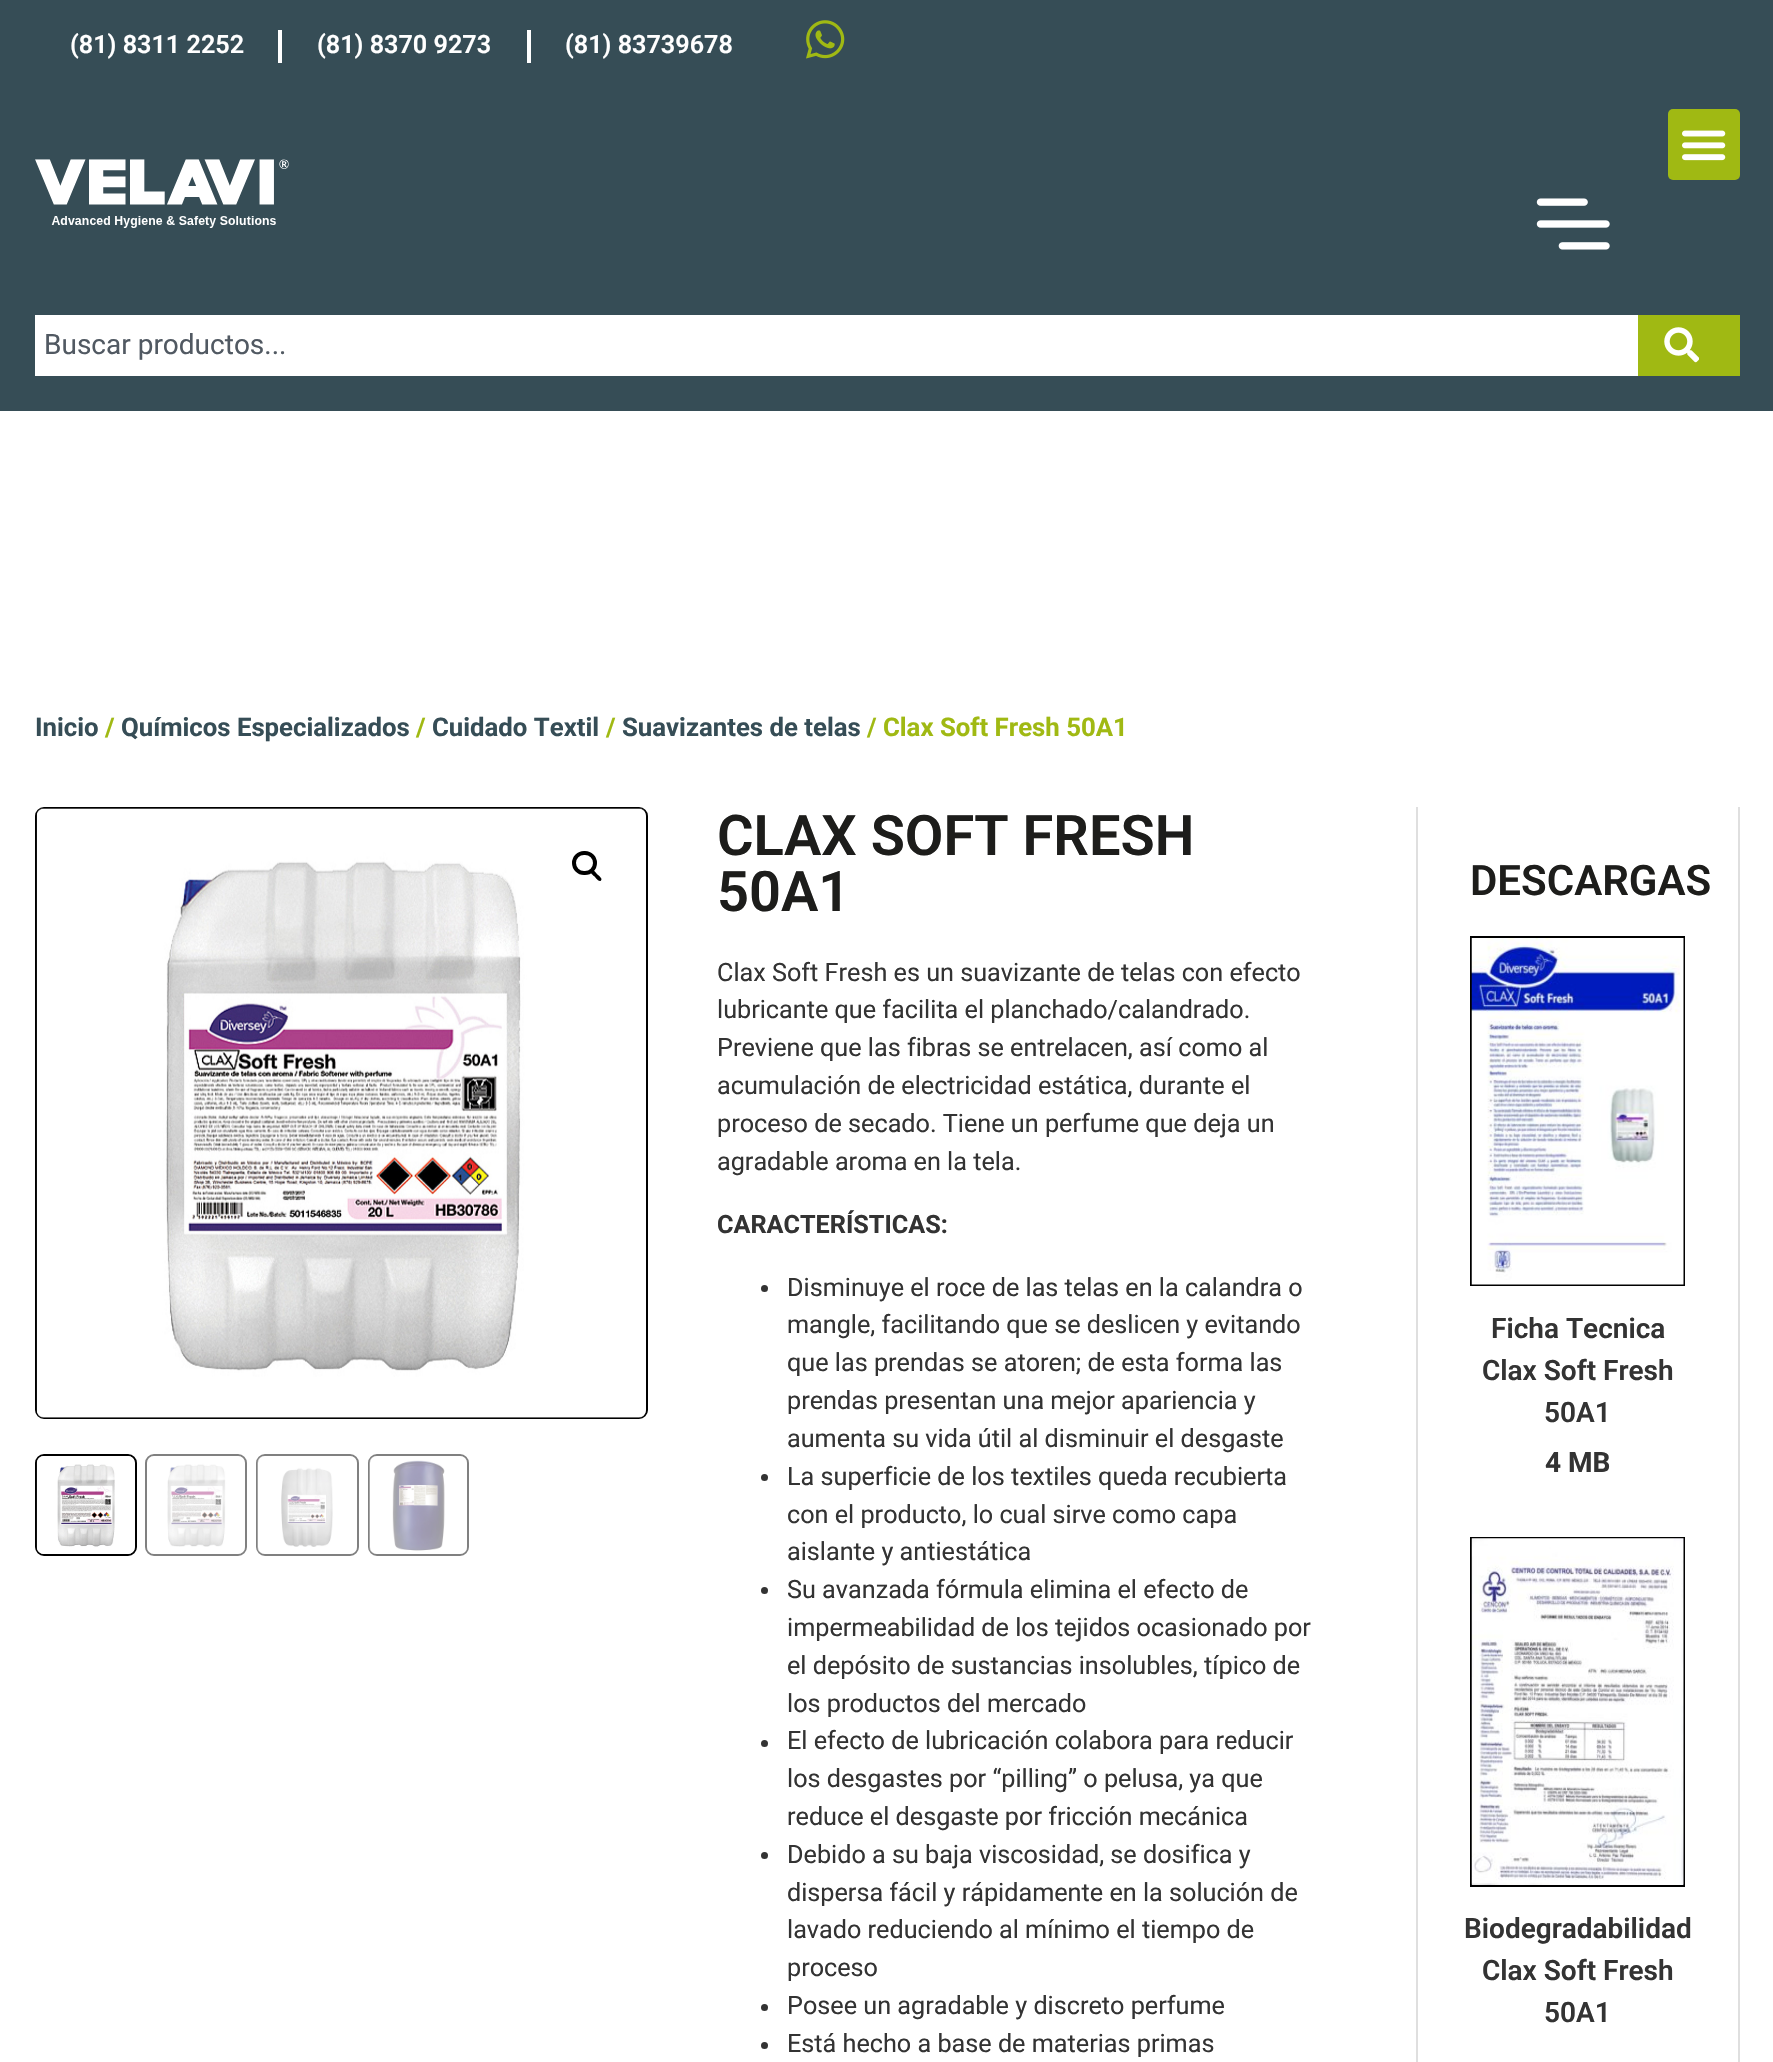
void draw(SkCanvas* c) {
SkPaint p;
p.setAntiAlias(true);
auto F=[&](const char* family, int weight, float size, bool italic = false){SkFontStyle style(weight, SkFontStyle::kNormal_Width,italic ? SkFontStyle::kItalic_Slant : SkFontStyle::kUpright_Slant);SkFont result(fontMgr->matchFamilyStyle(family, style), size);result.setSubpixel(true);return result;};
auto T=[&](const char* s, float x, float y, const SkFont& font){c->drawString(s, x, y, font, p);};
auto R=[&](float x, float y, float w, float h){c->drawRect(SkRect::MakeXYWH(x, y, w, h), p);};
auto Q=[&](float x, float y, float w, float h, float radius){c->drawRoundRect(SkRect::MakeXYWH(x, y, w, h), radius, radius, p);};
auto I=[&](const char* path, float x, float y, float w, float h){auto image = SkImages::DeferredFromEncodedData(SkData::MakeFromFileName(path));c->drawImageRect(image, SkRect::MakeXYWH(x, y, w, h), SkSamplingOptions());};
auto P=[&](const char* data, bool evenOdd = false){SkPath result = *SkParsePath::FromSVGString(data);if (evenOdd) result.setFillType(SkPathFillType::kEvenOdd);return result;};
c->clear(0xffffffff);
p.setColor(0xff364d56);
R(0,0,1773,411);
auto f1 = F("Roboto",600,25.2);
p.setColor(0xffffffff);
T("(81) 8311 2252",70,53,f1);
R(278,30,4,33);
T("(81) 8370 9273",317,53,f1);
R(527,30,4,33);
T("(81) 83739678",565,53,f1);
I("1.png",806,20,39,39);
I("2.png",35,159,254,69);
p.setColor(0xffa0b913);
Q(1668,109,72,71,5);
I("3.png",1682,130,44,31);
I("4.png",1536,198,74,52);
p.setColor(0xffffffff);
R(35,315,1603,61);
auto f2 = F("Roboto",400,28);
p.setColor(0xff515962);
T("Buscar productos...",44,354,f2);
p.setColor(0xffa0b913);
R(1638,315,102,61);
I("5.png",1664,327,35,36);
auto f3 = F("Roboto",700,25.75);
p.setColor(0xff364d56);
T("Inicio",35,736,f3);
p.setColor(0xffa0b913);
T("/",105,736,f3);
p.setColor(0xff364d56);
T("Químicos Especializados",121,736,f3);
p.setColor(0xffa0b913);
T("/",416,736,f3);
p.setColor(0xff364d56);
T("Cuidado Textil",432,736,f3);
p.setColor(0xffa0b913);
T("/",606,736,f3);
p.setColor(0xff364d56);
T("Suavizantes de telas",622,736,f3);
p.setColor(0xffa0b913);
T("/ Clax Soft Fresh 50A1",867,736,f3);
p.setStroke(true);
p.setStrokeWidth(2);
p.setColor(0xff000000);
c->drawRoundRect(SkRect::MakeXYWH(36,808,611,610),8,8,p);
I("6.png",36,808,610,610);
p.setStrokeWidth(4);
c->drawRoundRect(SkRect::MakeXYWH(574,853,21,20),10,10,p);
p.setStroke(false);
c->drawPath(P("M591 870.5c2-2 5 2.5 6.5 4c1 1 5.5 4 3.5 6c-2 2-5-2.5-6-3.5c-1.5-1.5-6-4.5-4-6.5z"),p);
p.setStroke(true);
p.setStrokeWidth(2);
c->drawRoundRect(SkRect::MakeXYWH(36,1455,100,100),8,8,p);
I("7.png",36,1456,99,98);
p.setColor(0xff808080);
c->drawRoundRect(SkRect::MakeXYWH(146,1455,100,100),8,8,p);
I("8.png",147,1456,98,98);
c->drawRoundRect(SkRect::MakeXYWH(257,1455,101,100),8,8,p);
I("9.png",257,1456,100,98);
c->drawRoundRect(SkRect::MakeXYWH(369,1455,99,100),8,8,p);
I("10.png",369,1456,98,98);
auto f4 = F("Roboto",600,56);
p.setStroke(false);
p.setColor(0xff1d1d1b);
T("CLAX SOFT FRESH",717,855,f4);
T("50A1",717,911,f4);
auto f5 = F("Roboto",400,25.2);
p.setColor(0xff333333);
T("Clax Soft Fresh es un suavizante de telas con efecto",717,981,f5);
T("lubricante que facilita el planchado/calandrado.",717,1018,f5);
T("Previene que las fibras se entrelacen, así como al",717,1056,f5);
T("acumulación de electricidad estática, durante el",717,1094,f5);
T("proceso de secado. Tiene un perfume que deja un",717,1132,f5);
T("agradable aroma en la tela.",717,1170,f5);
auto f6 = F("Roboto",700,25.2);
T("CARACTERÍSTICAS:",717,1233,f6);
c->drawCircle(764.5,1288.5,3.5,p);
T("Disminuye el roce de las telas en la calandra o",787,1296,f5);
T("mangle, facilitando que se deslicen y evitando",787,1333,f5);
T("que las prendas se atoren; de esta forma las",787,1371,f5);
T("prendas presentan una mejor apariencia y",787,1409,f5);
T("aumenta su vida útil al disminuir el desgaste",787,1447,f5);
c->drawCircle(764.5,1477.5,3.5,p);
T("La superficie de los textiles queda recubierta",787,1485,f5);
T("con el producto, lo cual sirve como capa",787,1523,f5);
T("aislante y antiestática",787,1560,f5);
c->drawCircle(764.5,1590.5,3.5,p);
T("Su avanzada fórmula elimina el efecto de",787,1598,f5);
T("impermeabilidad de los tejidos ocasionado por",787,1636,f5);
T("el depósito de sustancias insolubles, típico de",787,1674,f5);
T("los productos del mercado",787,1712,f5);
c->drawCircle(764.5,1743.5,3.5,p);
T("El efecto de lubricación colabora para reducir",787,1749,f5);
T("los desgastes por “pilling” o pelusa, ya que",787,1787,f5);
T("reduce el desgaste por fricción mecánica",787,1825,f5);
c->drawCircle(764.5,1855.5,3.5,p);
T("Debido a su baja viscosidad, se dosifica y",787,1863,f5);
T("dispersa fácil y rápidamente en la solución de",787,1901,f5);
T("lavado reduciendo al mínimo el tiempo de",787,1938,f5);
T("proceso",787,1976,f5);
c->drawCircle(764.5,2007.5,3.5,p);
T("Posee un agradable y discreto perfume",787,2014,f5);
c->drawCircle(764.5,2045.5,3.5,p);
T("Está hecho a base de materias primas",787,2052,f5);
p.setColor(0xffdfdfdf);
R(1738,807,2,1255);
R(1416,807,2,1255);
auto f7 = F("Roboto",600,42);
p.setColor(0xff1d1d1b);
T("DESCARGAS",1470,895,f7);
p.setStroke(true);
p.setColor(0xff000000);
c->drawRect(SkRect::MakeXYWH(1471,937,213,348),p);
I("11.png",1471,938,213,347);
auto f8 = F("Roboto",600,28);
p.setStroke(false);
p.setColor(0xff333333);
T("Ficha Tecnica",1491,1338,f8);
T("Clax Soft Fresh",1482,1380,f8);
T("50A1",1544,1422,f8);
auto f9 = F("Roboto",700,28);
T("4 MB",1545,1472,f9);
p.setStroke(true);
p.setColor(0xff000000);
c->drawRect(SkRect::MakeXYWH(1471,1538,213,348),p);
I("12.png",1471,1538,213,347);
p.setStroke(false);
p.setColor(0xff333333);
T("Biodegradabilidad",1464,1938,f8);
T("Clax Soft Fresh",1482,1980,f8);
T("50A1",1544,2022,f8);
}
